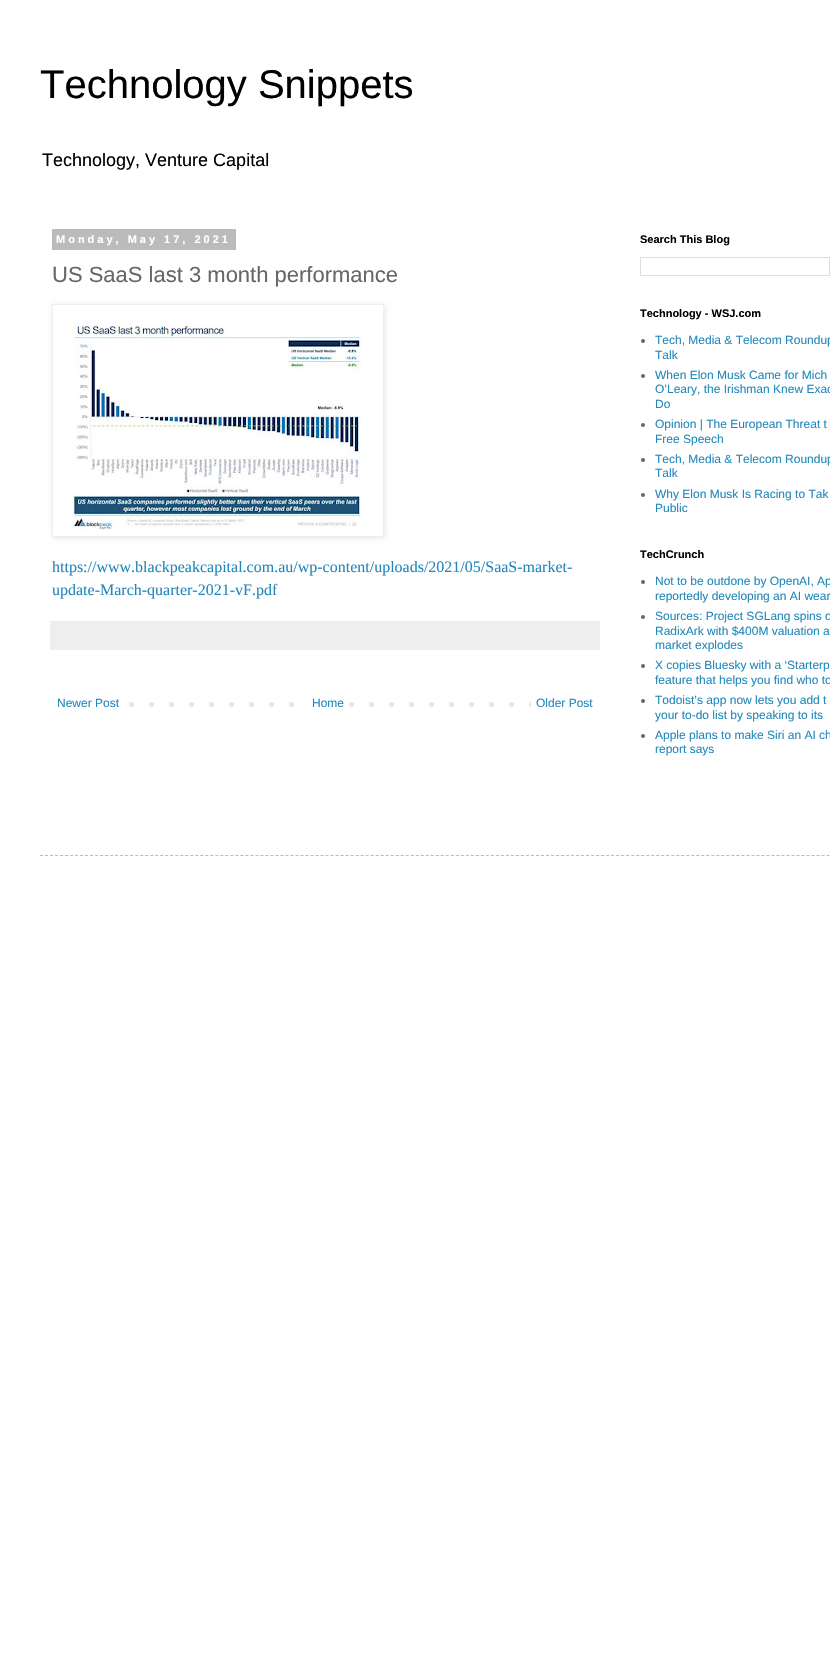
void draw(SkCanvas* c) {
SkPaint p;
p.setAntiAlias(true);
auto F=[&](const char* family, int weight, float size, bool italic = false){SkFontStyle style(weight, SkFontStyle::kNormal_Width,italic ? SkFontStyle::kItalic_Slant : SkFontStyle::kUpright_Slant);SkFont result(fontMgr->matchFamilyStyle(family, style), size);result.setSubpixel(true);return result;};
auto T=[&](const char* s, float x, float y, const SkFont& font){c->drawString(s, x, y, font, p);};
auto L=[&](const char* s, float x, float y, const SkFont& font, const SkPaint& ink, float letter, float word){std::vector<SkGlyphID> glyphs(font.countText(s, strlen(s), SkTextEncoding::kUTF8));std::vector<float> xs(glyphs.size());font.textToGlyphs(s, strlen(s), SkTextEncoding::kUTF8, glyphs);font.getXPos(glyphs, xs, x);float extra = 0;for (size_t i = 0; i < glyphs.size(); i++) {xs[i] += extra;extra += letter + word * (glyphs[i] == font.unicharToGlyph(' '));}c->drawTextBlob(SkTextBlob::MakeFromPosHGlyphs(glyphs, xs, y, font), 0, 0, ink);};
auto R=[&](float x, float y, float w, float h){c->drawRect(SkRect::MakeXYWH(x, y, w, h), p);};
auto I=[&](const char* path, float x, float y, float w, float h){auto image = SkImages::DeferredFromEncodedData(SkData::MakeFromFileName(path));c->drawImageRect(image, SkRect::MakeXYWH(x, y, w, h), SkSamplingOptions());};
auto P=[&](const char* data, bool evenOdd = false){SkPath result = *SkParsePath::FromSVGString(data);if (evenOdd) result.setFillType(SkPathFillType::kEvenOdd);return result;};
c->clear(0xffffffff);
auto f1 = F("Liberation Sans",400,40);
p.setColor(0xff000000);
T("Technology Snippets",40,98,f1);
auto f2 = F("Liberation Sans",400,18);
T("Technology, Venture Capital",42,166,f2);
p.setColor(0xffbbbbbb);
R(52,229,184,21);
auto f3 = F("Liberation Sans",700,11);
p.setColor(0xffffffff);
L("Monday, May 17, 2021",56,243,f3,p,3,0);
auto f4 = F("Liberation Sans",400,22);
p.setColor(0xff666666);
T("US SaaS last 3 month performance",52,282,f4);
c->save();
c->clipPath(P("M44 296h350v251h-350zm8 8h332v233h-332z",true),true);
p.setColor(0x1a000000);
p.setMaskFilter(SkMaskFilter::MakeBlur(kNormal_SkBlurStyle, 2.5));
c->drawRect(SkRect::MakeXYWH(53,305,332,233),p);
p.setMaskFilter(nullptr);
c->restore();
p.setStroke(true);
p.setStrokeWidth(1);
p.setColor(0xffeeeeee);
c->drawRect(SkRect::MakeXYWH(52.5,304.5,331,232),p);
I("1.png",71,321,291,210);
auto f5 = F("Liberation Serif",400,16);
p.setStroke(false);
p.setColor(0xff2288bb);
T("https://www.blackpeakcapital.com.au/wp-content/uploads/2021/05/SaaS-market-",52,572,f5);
T("update-March-quarter-2021-vF.pdf",52,595,f5);
p.setColor(0xffeeeeee);
R(50,621,550,29);
I("2.png",129,702,402,5);
auto f6 = F("Liberation Sans",400,12);
p.setColor(0xff2288bb);
T("Newer Post",57,707,f6);
p.setColor(0xffffffff);
R(309,702,26,5);
p.setColor(0xff2288bb);
T("Home",312,707,f6);
T("Older Post",536,707,f6);
p.setColor(0xff000000);
T("Search This Blog",640,243,f3);
p.setStroke(true);
p.setColor(0xffdddddd);
c->drawRect(SkRect::MakeXYWH(640.5,257.5,189,18),p);
p.setStroke(false);
p.setColor(0xff000000);
T("Technology - WSJ.com",640,317,f3);
p.setColor(0xff666666);
c->drawCircle(643,341,2,p);
p.setColor(0xff2288bb);
T("Tech, Media & Telecom Roundup",655,344,f6);
T("Talk",655,359,f6);
p.setColor(0xff666666);
c->drawCircle(643,376,2,p);
p.setColor(0xff2288bb);
T("When Elon Musk Came for Mich",655,379,f6);
T("O’Leary, the Irishman Knew Exac",655,393,f6);
T("Do",655,408,f6);
p.setColor(0xff666666);
c->drawCircle(643,425,2,p);
p.setColor(0xff2288bb);
T("Opinion | The European Threat t",655,428,f6);
T("Free Speech",655,443,f6);
p.setColor(0xff666666);
c->drawCircle(643,460,2,p);
p.setColor(0xff2288bb);
T("Tech, Media & Telecom Roundup",655,463,f6);
T("Talk",655,477,f6);
p.setColor(0xff666666);
c->drawCircle(643,495,2,p);
p.setColor(0xff2288bb);
T("Why Elon Musk Is Racing to Tak",655,498,f6);
T("Public",655,512,f6);
p.setColor(0xff000000);
T("TechCrunch",640,558,f3);
p.setColor(0xff666666);
c->drawCircle(643,582,2,p);
p.setColor(0xff2288bb);
T("Not to be outdone by OpenAI, Ap",655,585,f6);
T("reportedly developing an AI wear",655,600,f6);
p.setColor(0xff666666);
c->drawCircle(643,617,2,p);
p.setColor(0xff2288bb);
T("Sources: Project SGLang spins o",655,620,f6);
T("RadixArk with $400M valuation a",655,635,f6);
T("market explodes",655,649,f6);
p.setColor(0xff666666);
c->drawCircle(643,666,2,p);
p.setColor(0xff2288bb);
T("X copies Bluesky with a ‘Starterp",655,669,f6);
T("feature that helps you find who to",655,684,f6);
p.setColor(0xff666666);
c->drawCircle(643,701,2,p);
p.setColor(0xff2288bb);
T("Todoist’s app now lets you add t",655,704,f6);
T("your to-do list by speaking to its",655,719,f6);
p.setColor(0xff666666);
c->drawCircle(643,736,2,p);
p.setColor(0xff2288bb);
T("Apple plans to make Siri an AI ch",655,739,f6);
T("report says",655,753,f6);
p.setStroke(true);
p.setColor(0xffbbbbbb);
p.setPathEffect(SkDashPathEffect::Make({{3,2.01f}}, 0));
c->drawPath(P("M40 855.5h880"),p);
p.setPathEffect(nullptr);
}
